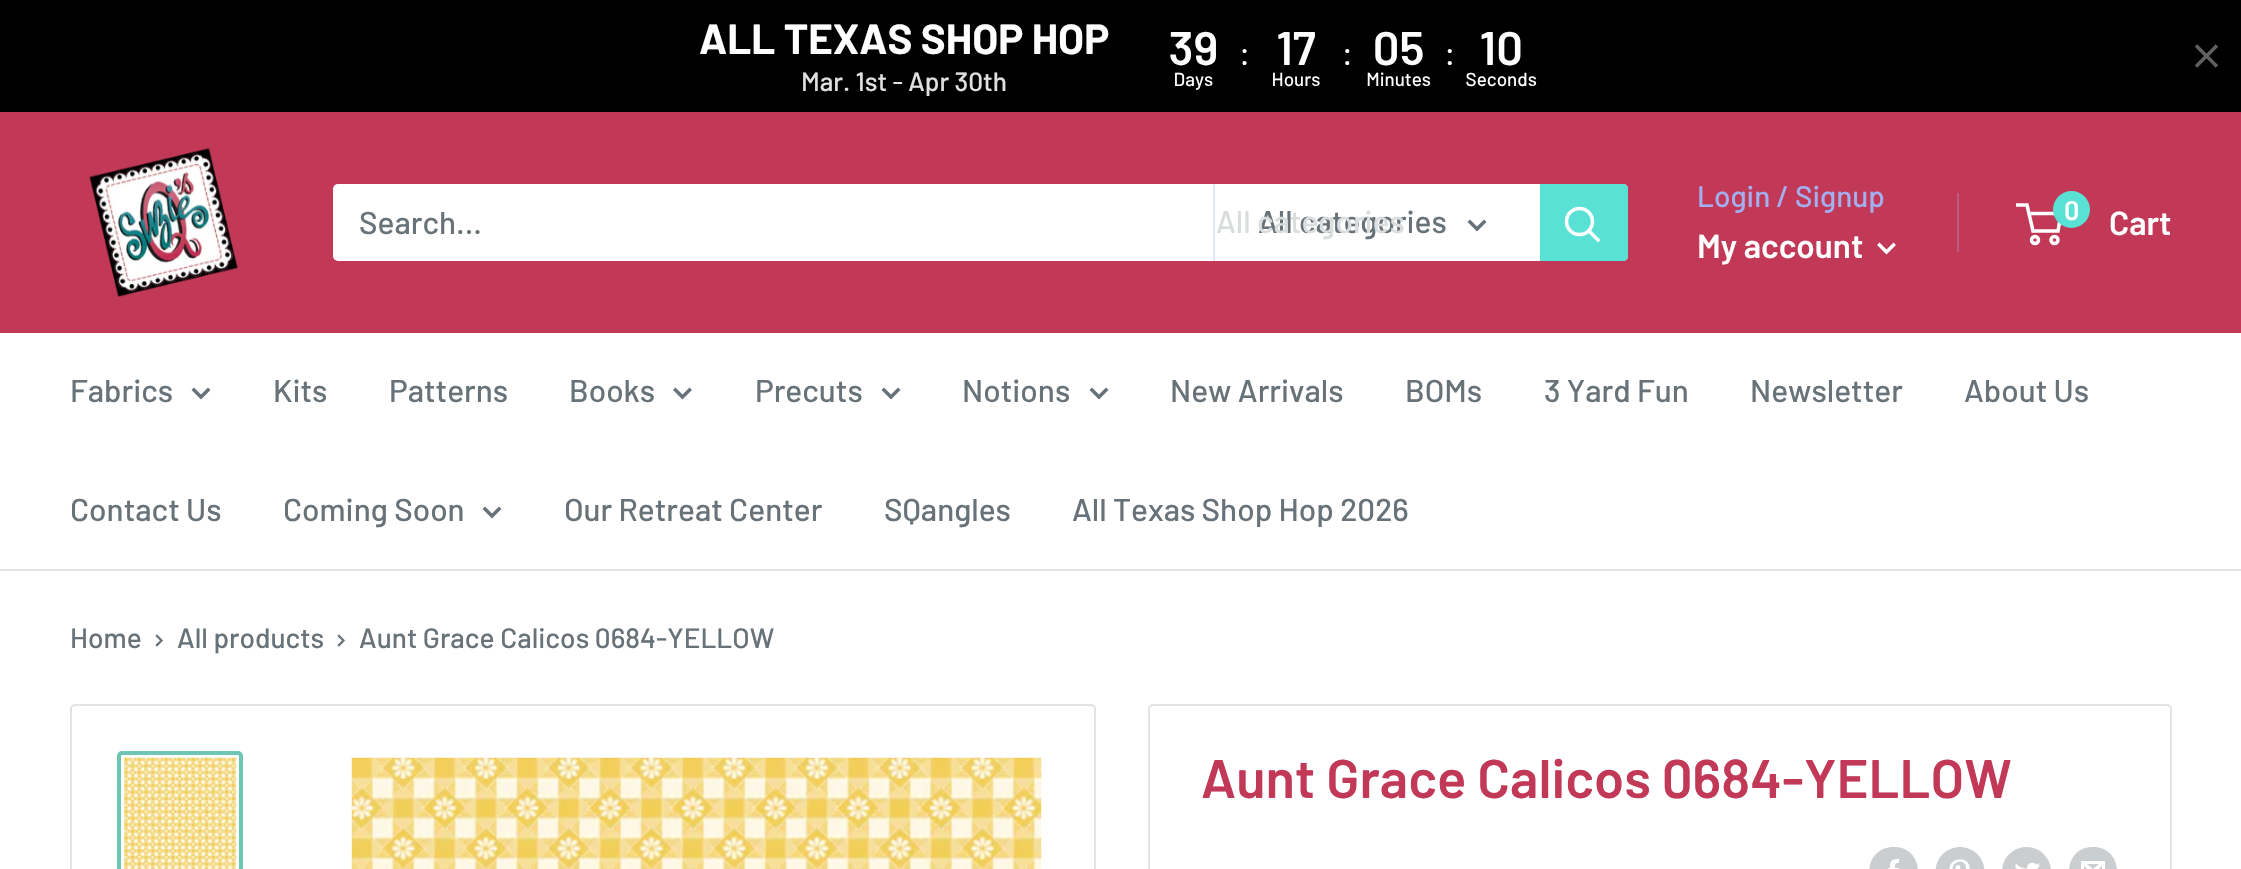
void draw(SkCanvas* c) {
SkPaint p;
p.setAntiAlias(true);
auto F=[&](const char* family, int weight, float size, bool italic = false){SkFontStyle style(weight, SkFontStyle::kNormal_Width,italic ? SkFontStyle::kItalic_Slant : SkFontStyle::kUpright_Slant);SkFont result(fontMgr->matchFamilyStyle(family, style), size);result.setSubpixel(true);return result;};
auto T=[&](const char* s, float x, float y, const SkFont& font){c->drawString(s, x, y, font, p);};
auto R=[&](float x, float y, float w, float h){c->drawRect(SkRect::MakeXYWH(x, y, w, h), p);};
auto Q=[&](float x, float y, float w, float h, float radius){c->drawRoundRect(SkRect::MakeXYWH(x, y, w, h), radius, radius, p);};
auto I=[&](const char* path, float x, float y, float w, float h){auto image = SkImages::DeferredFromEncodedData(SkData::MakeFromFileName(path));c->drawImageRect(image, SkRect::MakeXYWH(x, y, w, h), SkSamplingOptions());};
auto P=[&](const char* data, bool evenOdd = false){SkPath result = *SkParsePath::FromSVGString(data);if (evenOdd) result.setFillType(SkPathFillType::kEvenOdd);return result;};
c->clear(0xffffffff);
p.setColor(0xff000000);
R(0,0,2241,112);
auto f1 = F("Barlow",700,42);
p.setColor(0xffffffff);
T("ALL TEXAS SHOP HOP",699,54,f1);
auto f2 = F("Barlow",500,26.25);
p.setColor(0xffe0e0e0);
T("Mar. 1st - Apr 30th",801,91,f2);
I("1.png",1170,31,367,59);
p.setStroke(true);
p.setStrokeWidth(3.5);
p.setColor(0xff616161);
c->drawPath(P("M2217 45.5l-21 21m21 0l-21-21"),p);
p.setStroke(false);
p.setColor(0xffc23857);
R(0,112,2241,221);
I("2.png",89,148,149,149);
p.setColor(0xffffffff);
Q(333,184,1295,77,5);
auto f3 = F("Barlow",500,31.5);
p.setColor(0xff677279);
T("Search...",359,234,f3);
p.setColor(0xffe3e7fa);
R(1213,184,2,77);
p.setColor(0xff677279);
T("All categories",1258,233,f3);
p.setColor(0xffdaddde);
T("All categories",1216,233,f3);
p.setStroke(true);
p.setStrokeCap(SkPaint::kSquare_Cap);
p.setColor(0xff677279);
c->drawPath(P("M1484 222l-7 7l-7-7"),p);
p.setStroke(false);
p.setColor(0xff5ae1d5);
c->drawPath(P("M1540 184h83c3 0 5 2 5 5v67c0 3-2 5-5 5h-83z"),p);
p.setStroke(true);
p.setColor(0xffffffff);
c->drawPath(P("M1598 240l-9-9"),p);
p.setStrokeCap(SkPaint::kButt_Cap);
c->drawCircle(1579.5,221.5,13,p);
auto f4 = F("Barlow",500,29.75);
p.setStroke(false);
p.setColor(0xffa3afef);
T("Login / Signup",1697,207,f4);
p.setColor(0xffb95c85);
R(1957,193,2,59);
auto f5 = F("Barlow",600,33.25);
p.setColor(0xffffffff);
T("My account",1697,258,f5);
p.setStroke(true);
p.setStrokeCap(SkPaint::kSquare_Cap);
c->drawPath(P("M1893.5 245l-7 7l-7-7"),p);
p.setStrokeCap(SkPaint::kButt_Cap);
c->drawCircle(2035,240,3.5,p);
c->drawCircle(2054.5,240,3.5,p);
c->drawPath(P("M2029 213.5h32l-3 17.5h-25l-6-26h-11"),p);
p.setStroke(false);
p.setColor(0xff5ae1d5);
c->drawCircle(2071.5,209.5,18.5,p);
auto f6 = F("Barlow",600,27);
p.setColor(0xffffffff);
T("0",2064,220,f6);
T("Cart",2109,235,f5);
p.setColor(0xffe1e3e4);
R(0,569,2241,2);
p.setColor(0xff677279);
T("Fabrics",70,402,f3);
p.setStroke(true);
p.setStrokeCap(SkPaint::kSquare_Cap);
c->drawPath(P("M208 390l-7 7l-7-7"),p);
p.setStroke(false);
T("Kits",273,402,f3);
T("Patterns",389,402,f3);
T("Books",569,402,f3);
p.setStroke(true);
c->drawPath(P("M689.5 390l-7 7l-7-7"),p);
p.setStroke(false);
T("Precuts",755,402,f3);
p.setStroke(true);
c->drawPath(P("M898 390l-7 7l-7-7"),p);
p.setStroke(false);
T("Notions",962,402,f3);
p.setStroke(true);
c->drawPath(P("M1106 390l-7 7l-7-7"),p);
p.setStroke(false);
T("New Arrivals",1170,402,f3);
T("BOMs",1405,402,f3);
T("3 Yard Fun",1544,402,f3);
T("Newsletter",1750,402,f3);
T("About Us",1964,402,f3);
T("Contact Us",70,521,f3);
T("Coming Soon",283,521,f3);
p.setStroke(true);
c->drawPath(P("M499 509l-7 7l-7-7"),p);
p.setStroke(false);
T("Our Retreat Center",564,521,f3);
T("SQangles",884,521,f3);
T("All Texas Shop Hop 2026",1072,521,f3);
auto f7 = F("Barlow",500,28);
T("Home",70,648,f7);
p.setStroke(true);
p.setStrokeWidth(2.3);
c->drawPath(P("M157 636l4.5 4.5l-4.5 4.5"),p);
p.setStroke(false);
T("All products",177,648,f7);
p.setStroke(true);
c->drawPath(P("M339 636l4.5 4.5l-4.5 4.5"),p);
p.setStroke(false);
T("Aunt Grace Calicos 0684-YELLOW",359,648,f7);
p.setStroke(true);
p.setStrokeWidth(2);
p.setStrokeCap(SkPaint::kButt_Cap);
p.setColor(0xffe1e3e4);
c->drawRoundRect(SkRect::MakeXYWH(71,705,1024,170),4,4,p);
p.setStrokeWidth(4);
p.setColor(0xff6fc5b4);
c->drawRoundRect(SkRect::MakeXYWH(119,753,122,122),3,3,p);
I("3.png",124,757,113,112);
I("4.png",351,757,691,112);
p.setStrokeWidth(2);
p.setColor(0xffe1e3e4);
c->drawRoundRect(SkRect::MakeXYWH(1149,705,1022,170),4,4,p);
auto f8 = F("Barlow",600,54.25);
p.setStroke(false);
p.setColor(0xffc23857);
T("Aunt Grace Calicos 0684-YELLOW",1201,798,f8);
p.setColor(0xffcaced0);
c->drawPath(P("M1894 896c-33 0-33-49 0-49c32 0 32 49 0 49zm5-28h-4c0-4 0-5 4-5v-4c-8 0-9 2-9 9h-2v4l2-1v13h5v-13h4z",true),p);
I("5.png",1935,847,50,22);
I("6.png",2002,847,49,22);
c->drawPath(P("M2093 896c-32 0-32-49 0-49c32 0 32 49 0 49zm-6-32h12l-6 5zm15 2v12h-18v-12l9 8zm3-5h-24v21h24z"),p);
}
